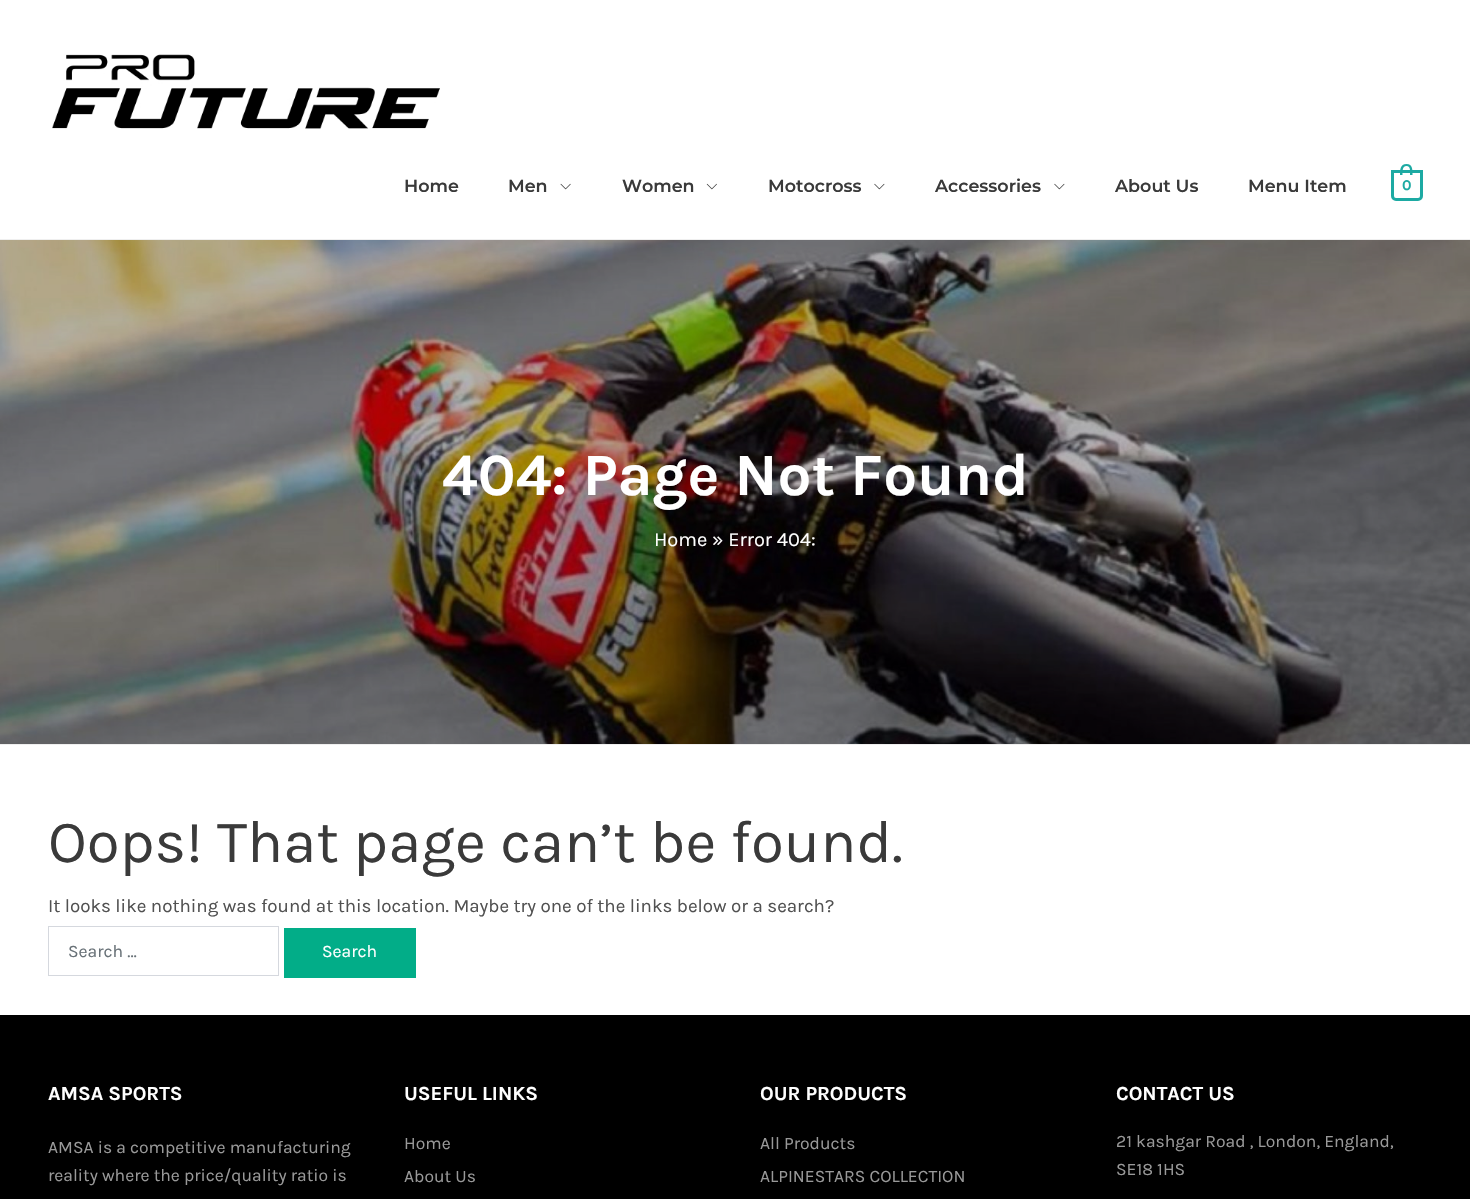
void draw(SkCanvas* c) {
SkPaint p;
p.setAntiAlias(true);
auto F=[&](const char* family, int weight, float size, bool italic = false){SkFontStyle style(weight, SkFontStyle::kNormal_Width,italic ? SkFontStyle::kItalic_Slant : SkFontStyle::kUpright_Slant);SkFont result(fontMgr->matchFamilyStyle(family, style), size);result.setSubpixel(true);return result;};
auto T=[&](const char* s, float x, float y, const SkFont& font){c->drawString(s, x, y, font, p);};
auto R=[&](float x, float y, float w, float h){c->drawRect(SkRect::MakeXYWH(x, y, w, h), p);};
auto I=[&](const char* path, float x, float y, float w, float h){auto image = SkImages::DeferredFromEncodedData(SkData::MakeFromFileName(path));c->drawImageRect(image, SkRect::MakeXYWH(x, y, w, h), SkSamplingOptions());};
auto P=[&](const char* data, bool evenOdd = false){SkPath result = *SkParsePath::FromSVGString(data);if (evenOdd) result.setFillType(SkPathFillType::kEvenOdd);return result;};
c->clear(0xffffffff);
p.setColor(0xffefefef);
R(0,239,1470,1);
I("1.png",52,54,388,75);
auto f1 = F("Montserrat",100,17.5);
p.setColor(0xff3a3a3a);
T("Home",404,192,f1);
T("Men",508,192,f1);
I("2.png",560,183,11,7);
T("Women",622,192,f1);
I("3.png",706,183,11,7);
T("Motocross",768,192,f1);
I("4.png",874,183,11,7);
T("Accessories",935,192,f1);
I("4.png",1054,183,11,7);
T("About Us",1115,192,f1);
T("Menu Item",1248,192,f1);
p.setStroke(true);
p.setStrokeWidth(3);
p.setColor(0xff1daaa3);
c->drawPath(P("M1392.5 171.5h29v24.5c0 2-1.5 3.5-3.5 3.5h-22c-2 0-3.5-1.5-3.5-3.5z"),p);
p.setStroke(false);
c->drawPath(P("M1406.5 164c6.5 0 6 6.5 6 11h-12.5c0-4.5 0-11 6.5-11zm0 2c4.5 0 3.5 6 3.5 9h-7.5c0-3-.5-9 4-9z",true),p);
auto f2 = F("Karla",700,15);
T("0",1402,190,f2);
I("5.png",0,240,1470,504);
p.setColor(0xffefefef);
R(0,744,1470,1);
auto f3 = F("Karla",700,60);
p.setColor(0xffffffff);
T("404: Page Not Found",442,495,f3);
auto f4 = F("Karla",400,20);
T("Home » Error 404:",654,546,f4);
auto f5 = F("Karla",400,60);
p.setColor(0xff3a3a3a);
T("Oops! That page can’t be found.",48,862,f5);
auto f6 = F("Karla",400,18.75);
p.setColor(0xff515151);
T("It looks like nothing was found at this location. Maybe try one of the links below or a search?",48,912,f6);
p.setStroke(true);
p.setStrokeWidth(1);
p.setColor(0xffd5d8de);
c->drawRect(SkRect::MakeXYWH(48.5,926.5,230,49),p);
auto f7 = F("Karla",400,17.5);
p.setStroke(false);
p.setColor(0xff687177);
T("Search …",68,957,f7);
p.setColor(0xff02ad88);
R(284,928,132,50);
p.setColor(0xffffffff);
T("Search",322,957,f7);
p.setColor(0xff000000);
R(0,1015,1470,184);
auto f8 = F("Karla",700,20);
p.setColor(0xffffffff);
T("AMSA SPORTS",48,1100,f8);
p.setColor(0xff999999);
T("AMSA is a competitive manufacturing",48,1153,f7);
T("reality where the price/quality ratio is",48,1181,f7);
p.setColor(0xffffffff);
T("USEFUL LINKS",404,1100,f8);
p.setColor(0xff999999);
T("Home",404,1149,f7);
T("About Us",404,1182,f7);
p.setColor(0xffffffff);
T("OUR PRODUCTS",760,1100,f8);
p.setColor(0xff999999);
T("All Products",760,1149,f7);
T("ALPINESTARS COLLECTION",760,1182,f7);
p.setColor(0xffffffff);
T("CONTACT US",1116,1100,f8);
p.setColor(0xff999999);
T("21 kashgar Road , London, England,",1116,1147,f7);
T("SE18 1HS",1116,1175,f7);
}
